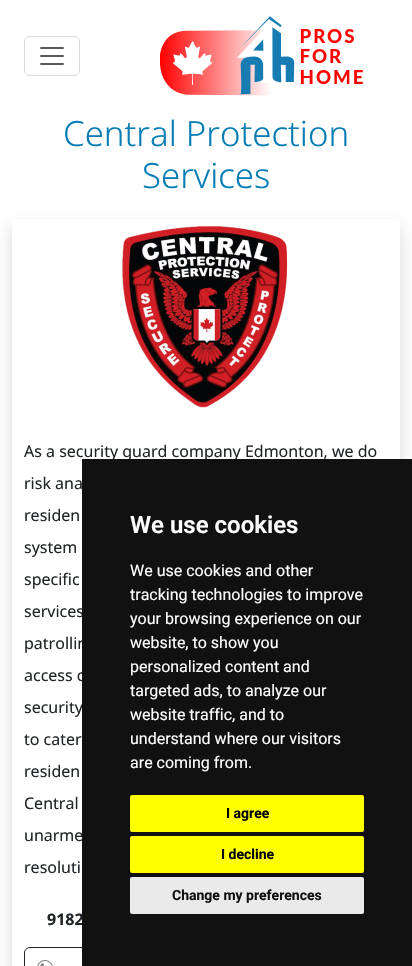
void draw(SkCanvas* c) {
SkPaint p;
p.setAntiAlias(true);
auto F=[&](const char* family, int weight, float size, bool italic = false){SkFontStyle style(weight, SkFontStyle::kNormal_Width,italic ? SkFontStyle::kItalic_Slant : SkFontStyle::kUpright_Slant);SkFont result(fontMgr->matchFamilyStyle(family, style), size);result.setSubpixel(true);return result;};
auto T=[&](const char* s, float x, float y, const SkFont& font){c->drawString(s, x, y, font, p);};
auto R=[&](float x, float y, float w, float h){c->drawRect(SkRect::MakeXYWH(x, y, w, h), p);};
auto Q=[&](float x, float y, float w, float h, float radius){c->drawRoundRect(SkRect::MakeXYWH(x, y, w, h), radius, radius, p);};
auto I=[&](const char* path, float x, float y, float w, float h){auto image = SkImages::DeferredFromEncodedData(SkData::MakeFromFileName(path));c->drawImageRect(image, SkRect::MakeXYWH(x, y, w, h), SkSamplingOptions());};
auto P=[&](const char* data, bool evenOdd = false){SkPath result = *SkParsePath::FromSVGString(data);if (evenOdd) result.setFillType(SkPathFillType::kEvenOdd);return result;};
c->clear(0xffffffff);
p.setStroke(true);
p.setStrokeWidth(1);
p.setColor(0xffd9d9d9);
c->drawRoundRect(SkRect::MakeXYWH(24.5,36.5,55,39),5.5,5.5,p);
I("1.png",40,47,24,18);
I("2.png",160,16,203,80);
auto f1 = F("Noto Sans",300,34.75);
p.setStroke(false);
p.setColor(0xff067cb4);
T("Central Protection",63,146,f1);
T("Services",142,188,f1);
c->save();
c->clipPath(P("M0 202h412v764h-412zm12 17h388v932h-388z",true),true);
p.setColor(0x26000000);
p.setMaskFilter(SkMaskFilter::MakeBlur(kNormal_SkBlurStyle, 8));
c->drawRect(SkRect::MakeXYWH(12,227,388,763),p);
p.setMaskFilter(nullptr);
c->restore();
I("3.png",122,226,166,182);
auto f2 = F("Noto Sans",400,16);
p.setColor(0xff212529);
T("As a security guard company Edmonton, we do",24,457,f2);
T("risk ana",24,489,f2);
T("residen",24,521,f2);
T("system",24,553,f2);
T("specific",24,585,f2);
T("services",24,617,f2);
T("patrollin",24,649,f2);
T("access c",24,681,f2);
T("security",24,713,f2);
T("to cater",24,745,f2);
T("residen",24,777,f2);
T("Central",24,809,f2);
T("unarme",24,841,f2);
T("resoluti",24,873,f2);
auto f3 = F("Noto Sans",700,16);
T("9182",47,925,f3);
p.setStroke(true);
c->drawRoundRect(SkRect::MakeXYWH(24.5,947.5,148,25),5.5,5.5,p);
I("4.png",37,960,16,6);
p.setStroke(false);
p.setColor(0xff111111);
R(82,459,330,507);
auto f4 = F("Roboto",600,24);
p.setColor(0xffffffff);
T("We use cookies",130,533,f4);
auto f5 = F("Roboto",400,16);
T("We use cookies and other",130,576,f5);
T("tracking technologies to improve",130,600,f5);
T("your browsing experience on our",130,624,f5);
T("website, to show you",130,648,f5);
T("personalized content and",130,672,f5);
T("targeted ads, to analyze our",130,696,f5);
T("website traffic, and to",130,720,f5);
T("understand where our visitors",130,744,f5);
T("are coming from.",130,768,f5);
p.setColor(0xffffff00);
Q(130,795,234,37,2);
auto f6 = F("Roboto",700,14);
p.setColor(0xff000000);
T("I agree",226,818,f6);
p.setColor(0xffffff00);
Q(130,836,234,37,2);
p.setColor(0xff000000);
T("I decline",221,859,f6);
p.setColor(0xffeaeaea);
Q(130,877,234,37,2);
p.setColor(0xff111111);
T("Change my preferences",172,900,f6);
}
